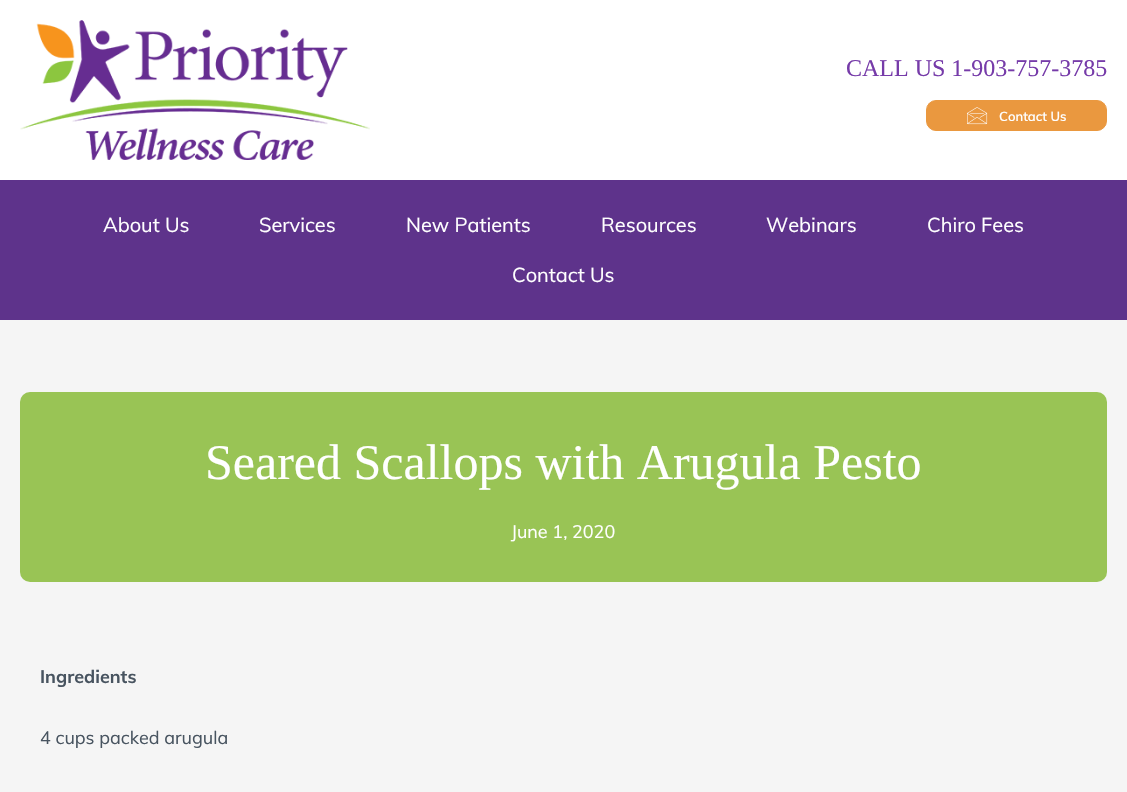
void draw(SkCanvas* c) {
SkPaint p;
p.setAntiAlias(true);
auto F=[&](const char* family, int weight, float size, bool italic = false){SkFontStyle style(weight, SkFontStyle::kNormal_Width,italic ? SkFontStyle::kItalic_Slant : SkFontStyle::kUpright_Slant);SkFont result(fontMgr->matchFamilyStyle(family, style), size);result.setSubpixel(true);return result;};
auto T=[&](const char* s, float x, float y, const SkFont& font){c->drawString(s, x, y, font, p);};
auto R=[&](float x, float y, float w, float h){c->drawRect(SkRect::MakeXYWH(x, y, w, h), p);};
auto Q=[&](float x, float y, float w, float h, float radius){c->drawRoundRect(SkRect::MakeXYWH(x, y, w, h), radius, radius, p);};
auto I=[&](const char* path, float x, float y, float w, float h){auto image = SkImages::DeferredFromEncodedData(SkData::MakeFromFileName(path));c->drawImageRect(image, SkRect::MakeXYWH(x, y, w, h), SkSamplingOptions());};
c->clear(0xfff5f5f5);
p.setColor(0xffffffff);
R(0,0,1127,180);
I("1.png",20,20,350,140);
auto f1 = F("Liberation Serif",400,24);
p.setColor(0xff763ba9);
T("CALL US 1-903-757-3785",846,76,f1);
p.setColor(0xffea983f);
c->drawRoundRect(SkRect::MakeXYWH(926.5,100.5,180,30),9.5,9.5,p);
p.setStroke(true);
p.setStrokeWidth(1);
c->drawRoundRect(SkRect::MakeXYWH(926.5,100.5,180,30),9.5,9.5,p);
I("2.png",967,107,21,18);
auto f2 = F("Muli",600,13);
p.setStroke(false);
p.setColor(0xffffffff);
T("Contact Us",999,121,f2);
p.setColor(0xff5e338b);
R(0,180,1127,140);
auto f3 = F("Muli",400,20);
p.setColor(0xffffffff);
T("About Us",103,232,f3);
T("Services",259,232,f3);
T("New Patients",406,232,f3);
T("Resources",601,232,f3);
T("Webinars",766,232,f3);
T("Chiro Fees",927,232,f3);
T("Contact Us",512,282,f3);
p.setColor(0xff99c455);
Q(20,392,1087,190,10);
auto f4 = F("Liberation Serif",400,50);
p.setColor(0xffffffff);
T("Seared Scallops with Arugula Pesto",205,479,f4);
auto f5 = F("Muli",400,18);
T("June 1, 2020",511,538,f5);
auto f6 = F("Muli",700,18);
p.setColor(0xff485460);
T("Ingredients",40,683,f6);
T("4 cups packed arugula",40,744,f5);
}
